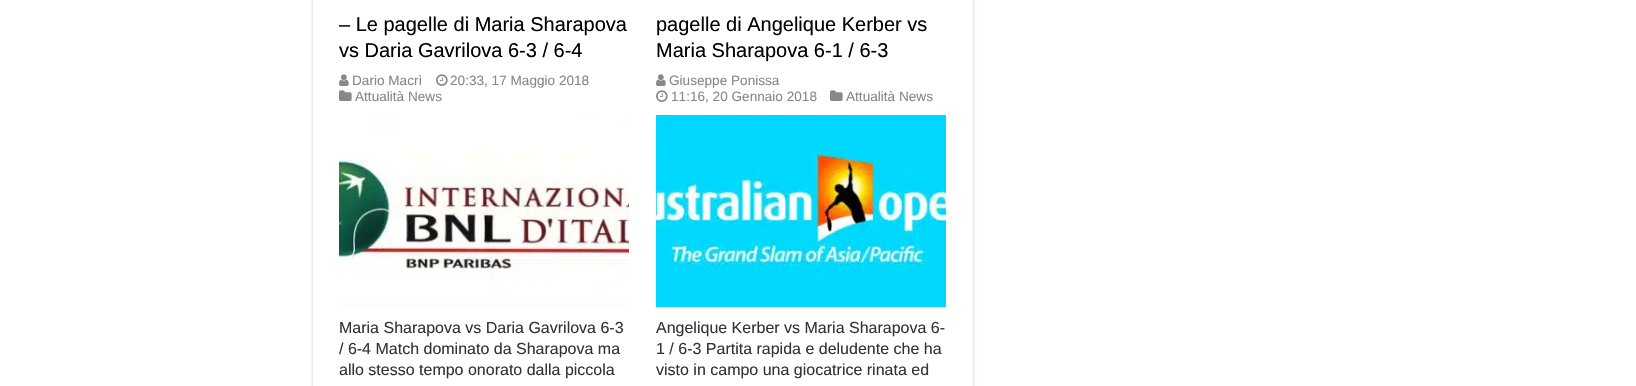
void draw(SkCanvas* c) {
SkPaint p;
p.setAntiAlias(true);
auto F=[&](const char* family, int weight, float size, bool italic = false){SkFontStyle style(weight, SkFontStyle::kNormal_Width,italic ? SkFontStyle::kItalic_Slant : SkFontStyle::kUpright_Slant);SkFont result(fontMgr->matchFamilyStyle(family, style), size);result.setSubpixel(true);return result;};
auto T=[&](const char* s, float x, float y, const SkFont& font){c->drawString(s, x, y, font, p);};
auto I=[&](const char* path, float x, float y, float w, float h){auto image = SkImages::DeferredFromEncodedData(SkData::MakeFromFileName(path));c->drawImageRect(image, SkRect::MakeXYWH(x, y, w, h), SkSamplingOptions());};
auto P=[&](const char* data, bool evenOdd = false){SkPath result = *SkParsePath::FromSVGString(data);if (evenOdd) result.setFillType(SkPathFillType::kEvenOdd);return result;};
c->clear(0xffffffff);
c->save();
c->clipPath(P("M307 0h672v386h-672zm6-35h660v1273h-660z",true),true);
p.setColor(0xffcacaca);
p.setMaskFilter(SkMaskFilter::MakeBlur(kNormal_SkBlurStyle, 1.5));
c->drawRect(SkRect::MakeXYWH(313,-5,660,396),p);
p.setMaskFilter(nullptr);
c->restore();
auto f1 = F("Liberation Sans",400,20);
p.setColor(0xff000000);
T("– Le pagelle di Maria Sharapova",339,31,f1);
T("vs Daria Gavrilova 6-3 / 6-4",339,57,f1);
I("1.png",339,74,10,12);
auto f2 = F("Liberation Sans",400,13.6);
p.setColor(0xff888888);
T("Dario Macrì",352,85,f2);
I("2.png",436,74,12,12);
T("20:33, 17 Maggio 2018",450,85,f2);
I("3.png",339,90,13,11);
T("Attualità News",355,101,f2);
I("4.png",339,115,290,192);
auto f3 = F("Liberation Sans",400,16);
p.setColor(0xff333333);
T("Maria Sharapova vs Daria Gavrilova 6-3",339,333,f3);
T("/ 6-4 Match dominato da Sharapova ma",339,354,f3);
T("allo stesso tempo onorato dalla piccola",339,375,f3);
p.setColor(0xff000000);
T("pagelle di Angelique Kerber vs",656,31,f1);
T("Maria Sharapova 6-1 / 6-3",656,57,f1);
I("1.png",656,74,10,12);
p.setColor(0xff888888);
T("Giuseppe Ponissa",669,85,f2);
I("2.png",656,90,12,12);
T("11:16, 20 Gennaio 2018",671,101,f2);
I("3.png",830,90,13,11);
T("Attualità News",846,101,f2);
I("5.png",656,115,290,192);
p.setColor(0xff333333);
T("Angelique Kerber vs Maria Sharapova 6-",656,333,f3);
T("1 / 6-3 Partita rapida e deludente che ha",656,354,f3);
T("visto in campo una giocatrice rinata ed",656,375,f3);
}
